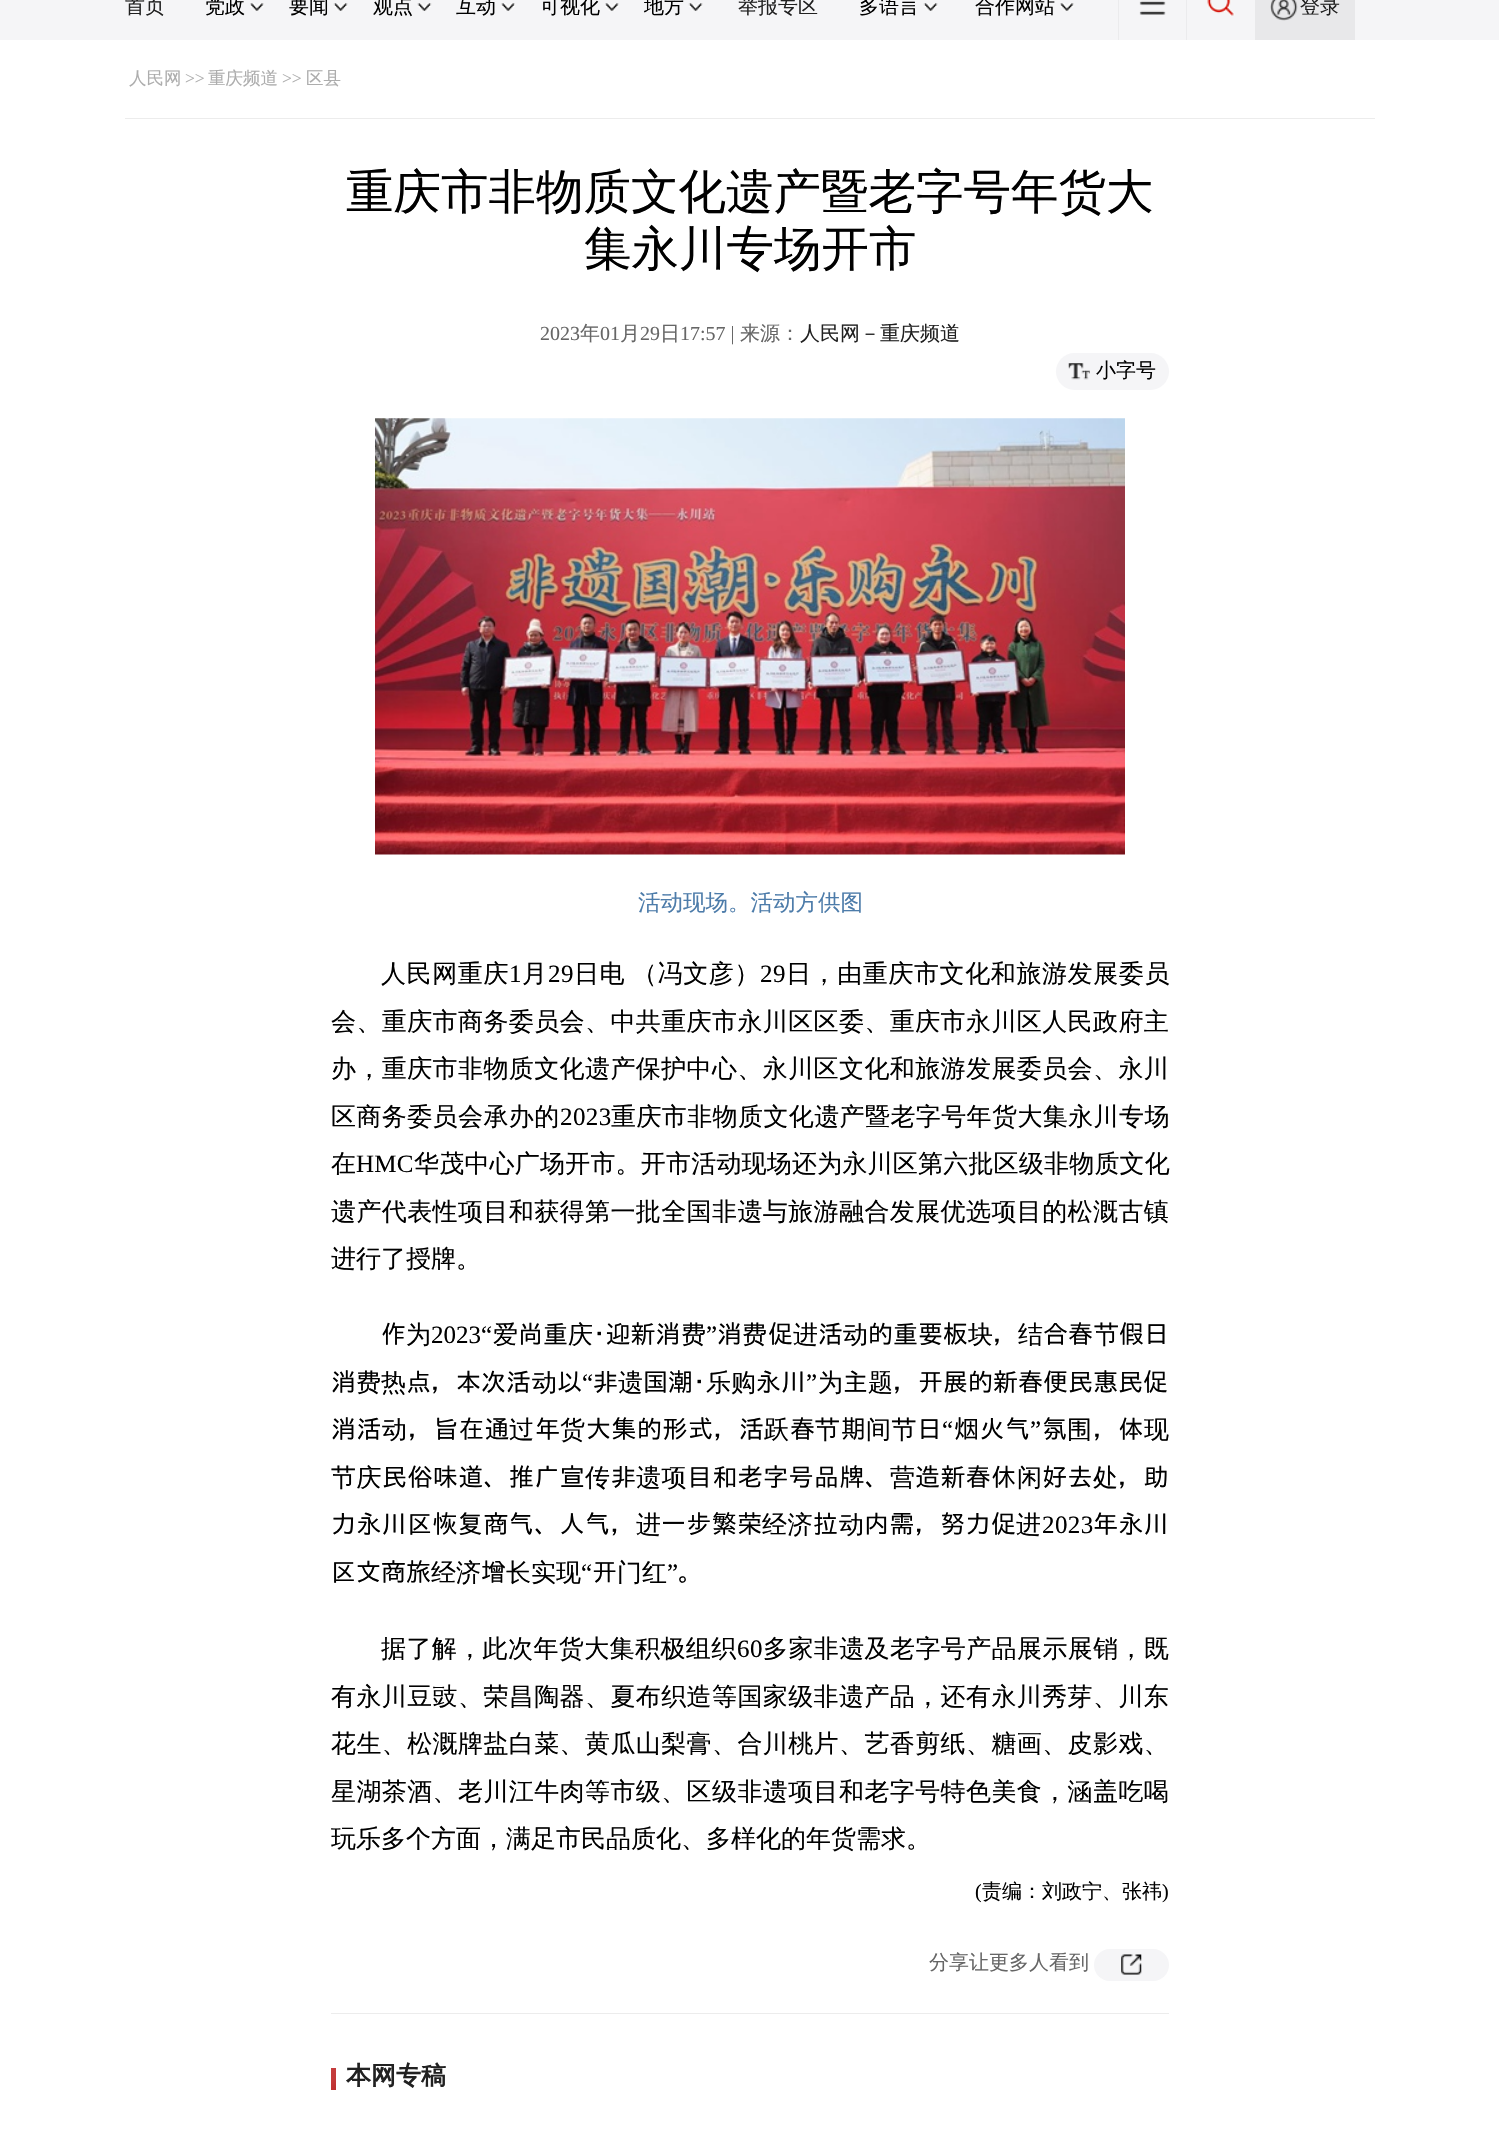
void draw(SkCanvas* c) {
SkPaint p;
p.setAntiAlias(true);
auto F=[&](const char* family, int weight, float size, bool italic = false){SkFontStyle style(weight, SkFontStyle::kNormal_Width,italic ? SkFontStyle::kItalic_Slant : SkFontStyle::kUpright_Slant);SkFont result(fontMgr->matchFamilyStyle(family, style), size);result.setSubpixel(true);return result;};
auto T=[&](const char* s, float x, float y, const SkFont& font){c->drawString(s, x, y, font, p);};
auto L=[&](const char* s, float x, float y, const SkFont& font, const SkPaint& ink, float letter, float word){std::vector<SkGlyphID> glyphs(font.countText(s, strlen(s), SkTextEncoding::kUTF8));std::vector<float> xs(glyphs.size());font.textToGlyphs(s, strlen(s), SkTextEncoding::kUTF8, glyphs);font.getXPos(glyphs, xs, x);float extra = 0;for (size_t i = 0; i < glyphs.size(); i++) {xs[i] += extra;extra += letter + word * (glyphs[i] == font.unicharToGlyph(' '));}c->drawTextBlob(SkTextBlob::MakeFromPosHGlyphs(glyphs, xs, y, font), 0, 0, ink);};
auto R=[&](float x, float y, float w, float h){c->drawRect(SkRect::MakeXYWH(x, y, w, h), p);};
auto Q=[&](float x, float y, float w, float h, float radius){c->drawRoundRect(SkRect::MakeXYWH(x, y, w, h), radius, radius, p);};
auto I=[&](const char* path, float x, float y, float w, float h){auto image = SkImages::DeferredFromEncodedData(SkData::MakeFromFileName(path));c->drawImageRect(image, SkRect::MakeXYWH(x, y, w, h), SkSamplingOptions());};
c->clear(0xffffffff);
p.setColor(0xfff5f5f7);
R(0,0,1499,40);
auto f1 = F("WenQuanYi Zen Hei",500,20);
p.setColor(0xff212121);
T("首页",125,13,f1);
p.setColor(0xff000000);
T("党政",205,13,f1);
I("1.png",250,3,14,8);
T("要闻",289,13,f1);
I("2.png",333,3,15,8);
T("观点",373,13,f1);
I("3.png",417,3,15,8);
T("互动",456,13,f1);
I("4.png",501,3,14,8);
T("可视化",540,13,f1);
I("1.png",605,3,14,8);
T("地方",644,13,f1);
I("5.png",688,3,15,8);
p.setColor(0xff212121);
T("举报专区",738,13,f1);
p.setColor(0xff000000);
T("多语言",859,13,f1);
I("5.png",923,3,15,8);
T("合作网站",975,13,f1);
I("1.png",1060,3,14,8);
p.setColor(0xffebebed);
R(1186,0,1,40);
R(1118,0,1,40);
I("6.png",1139,0,27,15);
I("7.png",1207,0,28,16);
p.setColor(0xffe8e8ea);
R(1255,0,100,40);
I("8.png",1270,0,28,21);
p.setColor(0xff212121);
T("登录",1300,13,f1);
p.setColor(0xffececec);
R(125,118,1250,1);
auto f2 = F("WenQuanYi Zen Hei",500,17.5);
p.setColor(0xffadadad);
T("人民网",129,84,f2);
auto f3 = F("Liberation Serif",400,17.5);
T(">>",185,84,f3);
T("重庆频道",208,84,f2);
T(">>",282,84,f3);
T("区县",306,84,f2);
auto f4 = F("WenQuanYi Zen Hei",500,47.5);
p.setColor(0xff000000);
T("重庆市非物质文化遗产暨老字号年货大",346,208,f4);
T("集永川专场开市",584,265,f4);
auto f5 = F("Liberation Serif",400,20);
p.setColor(0xff666666);
T("2023",540,340,f5);
T("年",580,340,f1);
T("01",600,340,f5);
T("月",620,340,f1);
T("29",640,340,f5);
T("日",660,340,f1);
T("17:57 |",680,340,f5);
T("来源：",740,340,f1);
p.setColor(0xff212121);
T("人民网－重庆频道",800,340,f1);
p.setColor(0xfff5f5f7);
Q(1056,353,113,37,18.5);
I("9.png",1068,363,22,17);
p.setColor(0xff000000);
T("小字号",1096,377,f1);
I("10.png",375,418,750,437);
auto f6 = F("WenQuanYi Zen Hei",500,22.5);
p.setColor(0xff4d7caa);
T("活动现场。活动方供图",638,910,f6);
auto f7 = F("WenQuanYi Zen Hei",500,25);
p.setColor(0xff000000);
L("人民网重庆",381,982,f7,p,.6,0);
auto f8 = F("Liberation Serif",400,25);
L("1",509,982,f8,p,.6,0);
L("月",522,982,f7,p,.6,0);
L("29",548,982,f8,p,.6,0);
L("日电",574,982,f7,p,.6,0);
L("（冯文彦）",632,982,f7,p,.6,0);
L("29",760,982,f8,p,.6,0);
L("日，由重庆市文化和旅游发展委员",786,982,f7,p,.6,0);
L("会、重庆市商务委员会、中共重庆市永川区区委、重庆市永川区人民政府主",331,1030,f7,p,.4,0);
L("办，重庆市非物质文化遗产保护中心、永川区文化和旅游发展委员会、永川",331,1077,f7,p,.4,0);
L("区商务委员会承办的",331,1125,f7,p,.4,0);
L("2023",560,1125,f8,p,.4,0);
L("重庆市非物质文化遗产暨老字号年货大集永川专场",611,1125,f7,p,.4,0);
L("在",331,1172,f7,p,.2,0);
L("HMC",356,1172,f8,p,.2,0);
L("华茂中心广场开市。开市活动现场还为永川区第六批区级非物质文化",414,1172,f7,p,.2,0);
L("遗产代表性项目和获得第一批全国非遗与旅游融合发展优选项目的松溉古镇",331,1220,f7,p,.4,0);
T("进行了授牌。",331,1267,f7);
auto f9 = F("IPAGothic",400,25);
T("作",381,1343,f9);
T("为",406,1343,f7);
T("2023“",431,1343,f8);
T("爱",493,1343,f7);
T("尚重",518,1343,f9);
T("庆",568,1343,f7);
T("･迎新消",593,1343,f9);
T("费",681,1343,f7);
T("”",706,1343,f8);
T("消",717,1343,f9);
T("费",742,1343,f7);
T("促",768,1343,f9);
T("进",793,1343,f7);
T("活",818,1343,f9);
T("动",843,1343,f7);
T("的重要板",868,1343,f9);
T("块",968,1343,f7);
T("结",1018,1343,f7);
T("合春",1043,1343,f9);
T("节",1094,1343,f7);
T("假日",1119,1343,f9);
T("，",993,1343,f9);
T("消",331,1391,f9);
T("费热",356,1391,f7);
T("点，本次活",406,1391,f9);
T("动",532,1391,f7);
T("以",557,1391,f9);
T("“",582,1391,f8);
T("非",593,1391,f9);
T("遗",618,1391,f7);
T("国潮･",643,1391,f9);
T("乐购",706,1391,f7);
T("永川",756,1391,f9);
T("”",806,1391,f8);
T("为",818,1391,f7);
T("主",843,1391,f9);
T("题",868,1391,f7);
T("，开展的新春便民惠民促",893,1391,f9);
L("消活",331,1438,f9,p,.5,0);
L("动",382,1438,f7,p,.5,0);
L("，旨在通",408,1438,f9,p,.5,0);
L("过",509,1438,f7,p,.5,0);
L("年",535,1438,f9,p,.5,0);
L("货",560,1438,f7,p,.5,0);
L("大集的形式，活",586,1438,f9,p,.5,0);
L("跃",764,1438,f7,p,.5,0);
L("春",790,1438,f9,p,.5,0);
L("节",815,1438,f7,p,.5,0);
L("期",841,1438,f9,p,.5,0);
L("间节",866,1438,f7,p,.5,0);
L("日",917,1438,f9,p,.5,0);
L("“",942,1438,f8,p,.5,0);
L("烟火气",954,1438,f9,p,.5,0);
L("”",1030,1438,f8,p,.5,0);
L("氛",1042,1438,f9,p,.5,0);
L("围",1067,1438,f7,p,.5,0);
L("，体",1093,1438,f9,p,.5,0);
L("现",1144,1438,f7,p,.5,0);
L("节庆",331,1486,f7,p,.4,0);
L("民俗味道、推广宣",382,1486,f9,p,.4,0);
L("传",585,1486,f7,p,.4,0);
L("非",611,1486,f9,p,.4,0);
L("遗项",636,1486,f7,p,.4,0);
L("目和老字号品牌、",687,1486,f9,p,.4,0);
L("营",890,1486,f7,p,.4,0);
L("造新春休",915,1486,f9,p,.4,0);
L("闲",1017,1486,f7,p,.4,0);
L("好去",1042,1486,f9,p,.4,0);
L("处",1093,1486,f7,p,.4,0);
L("，助",1118,1486,f9,p,.4,0);
L("力永川区恢复商气、人气，",331,1533,f9,p,.4,0);
L("进",636,1533,f7,p,.4,0);
L("一步繁荣",661,1533,f9,p,.4,0);
L("经济",762,1533,f7,p,.4,0);
L("拉",813,1533,f9,p,.4,0);
L("动",839,1533,f7,p,.4,0);
L("内需，努力促",864,1533,f9,p,.4,0);
L("进",1016,1533,f7,p,.4,0);
L("2023",1042,1533,f8,p,.4,0);
L("年永川",1093,1533,f9,p,.4,0);
T("区文商旅",331,1581,f9);
T("经济",431,1581,f7);
T("增",481,1581,f9);
T("长实现",506,1581,f7);
T("“",581,1581,f8);
T("开",592,1581,f9);
T("门红",617,1581,f7);
T("”",667,1581,f8);
T("。",678,1581,f9);
L("据了解，此次年货大集积极组织",381,1657,f7,p,.4,0);
L("60",737,1657,f8,p,.4,0);
L("多家非遗及老字号产品展示展销，既",763,1657,f7,p,.4,0);
L("有永川豆豉、荣昌陶器、夏布织造等国家级非遗产品，还有永川秀芽、川东",331,1705,f7,p,.4,0);
L("花生、松溉牌盐白菜、黄瓜山梨膏、合川桃片、艺香剪纸、糖画、皮影戏、",331,1752,f7,p,.4,0);
L("星湖茶酒、老川江牛肉等市级、区级非遗项目和老字号特色美食，涵盖吃喝",331,1800,f7,p,.4,0);
T("玩乐多个方面，满足市民品质化、多样化的年货需求。",331,1847,f7);
T("(",975,1898,f5);
T("责编：刘政宁、张祎",982,1898,f1);
T(")",1162,1898,f5);
p.setColor(0xff666666);
T("分享让更多人看到",929,1969,f1);
p.setColor(0xfff5f5f7);
Q(1094,1949,75,32,16);
I("11.png",1121,1954,21,21);
p.setColor(0xffececec);
R(331,2013,838,1);
{
const SkColor colors[] = {0xffc53d3d,0xffc43a3a,0xffbb2d2d};
const float stops[] = {0,.49,1};
const SkPoint ends[] = {{327,2072}, {341,2086}};
p.setShader(SkGradientShader::MakeLinear(ends, colors, stops, 3, SkTileMode::kClamp));
p.setAlpha(255);
}
R(331,2068,5,22);
auto f10 = F("WenQuanYi Zen Hei",700,25);
p.setShader(nullptr);
p.setColor(0xff212121);
T("本网专稿",346,2084,f10);
}
